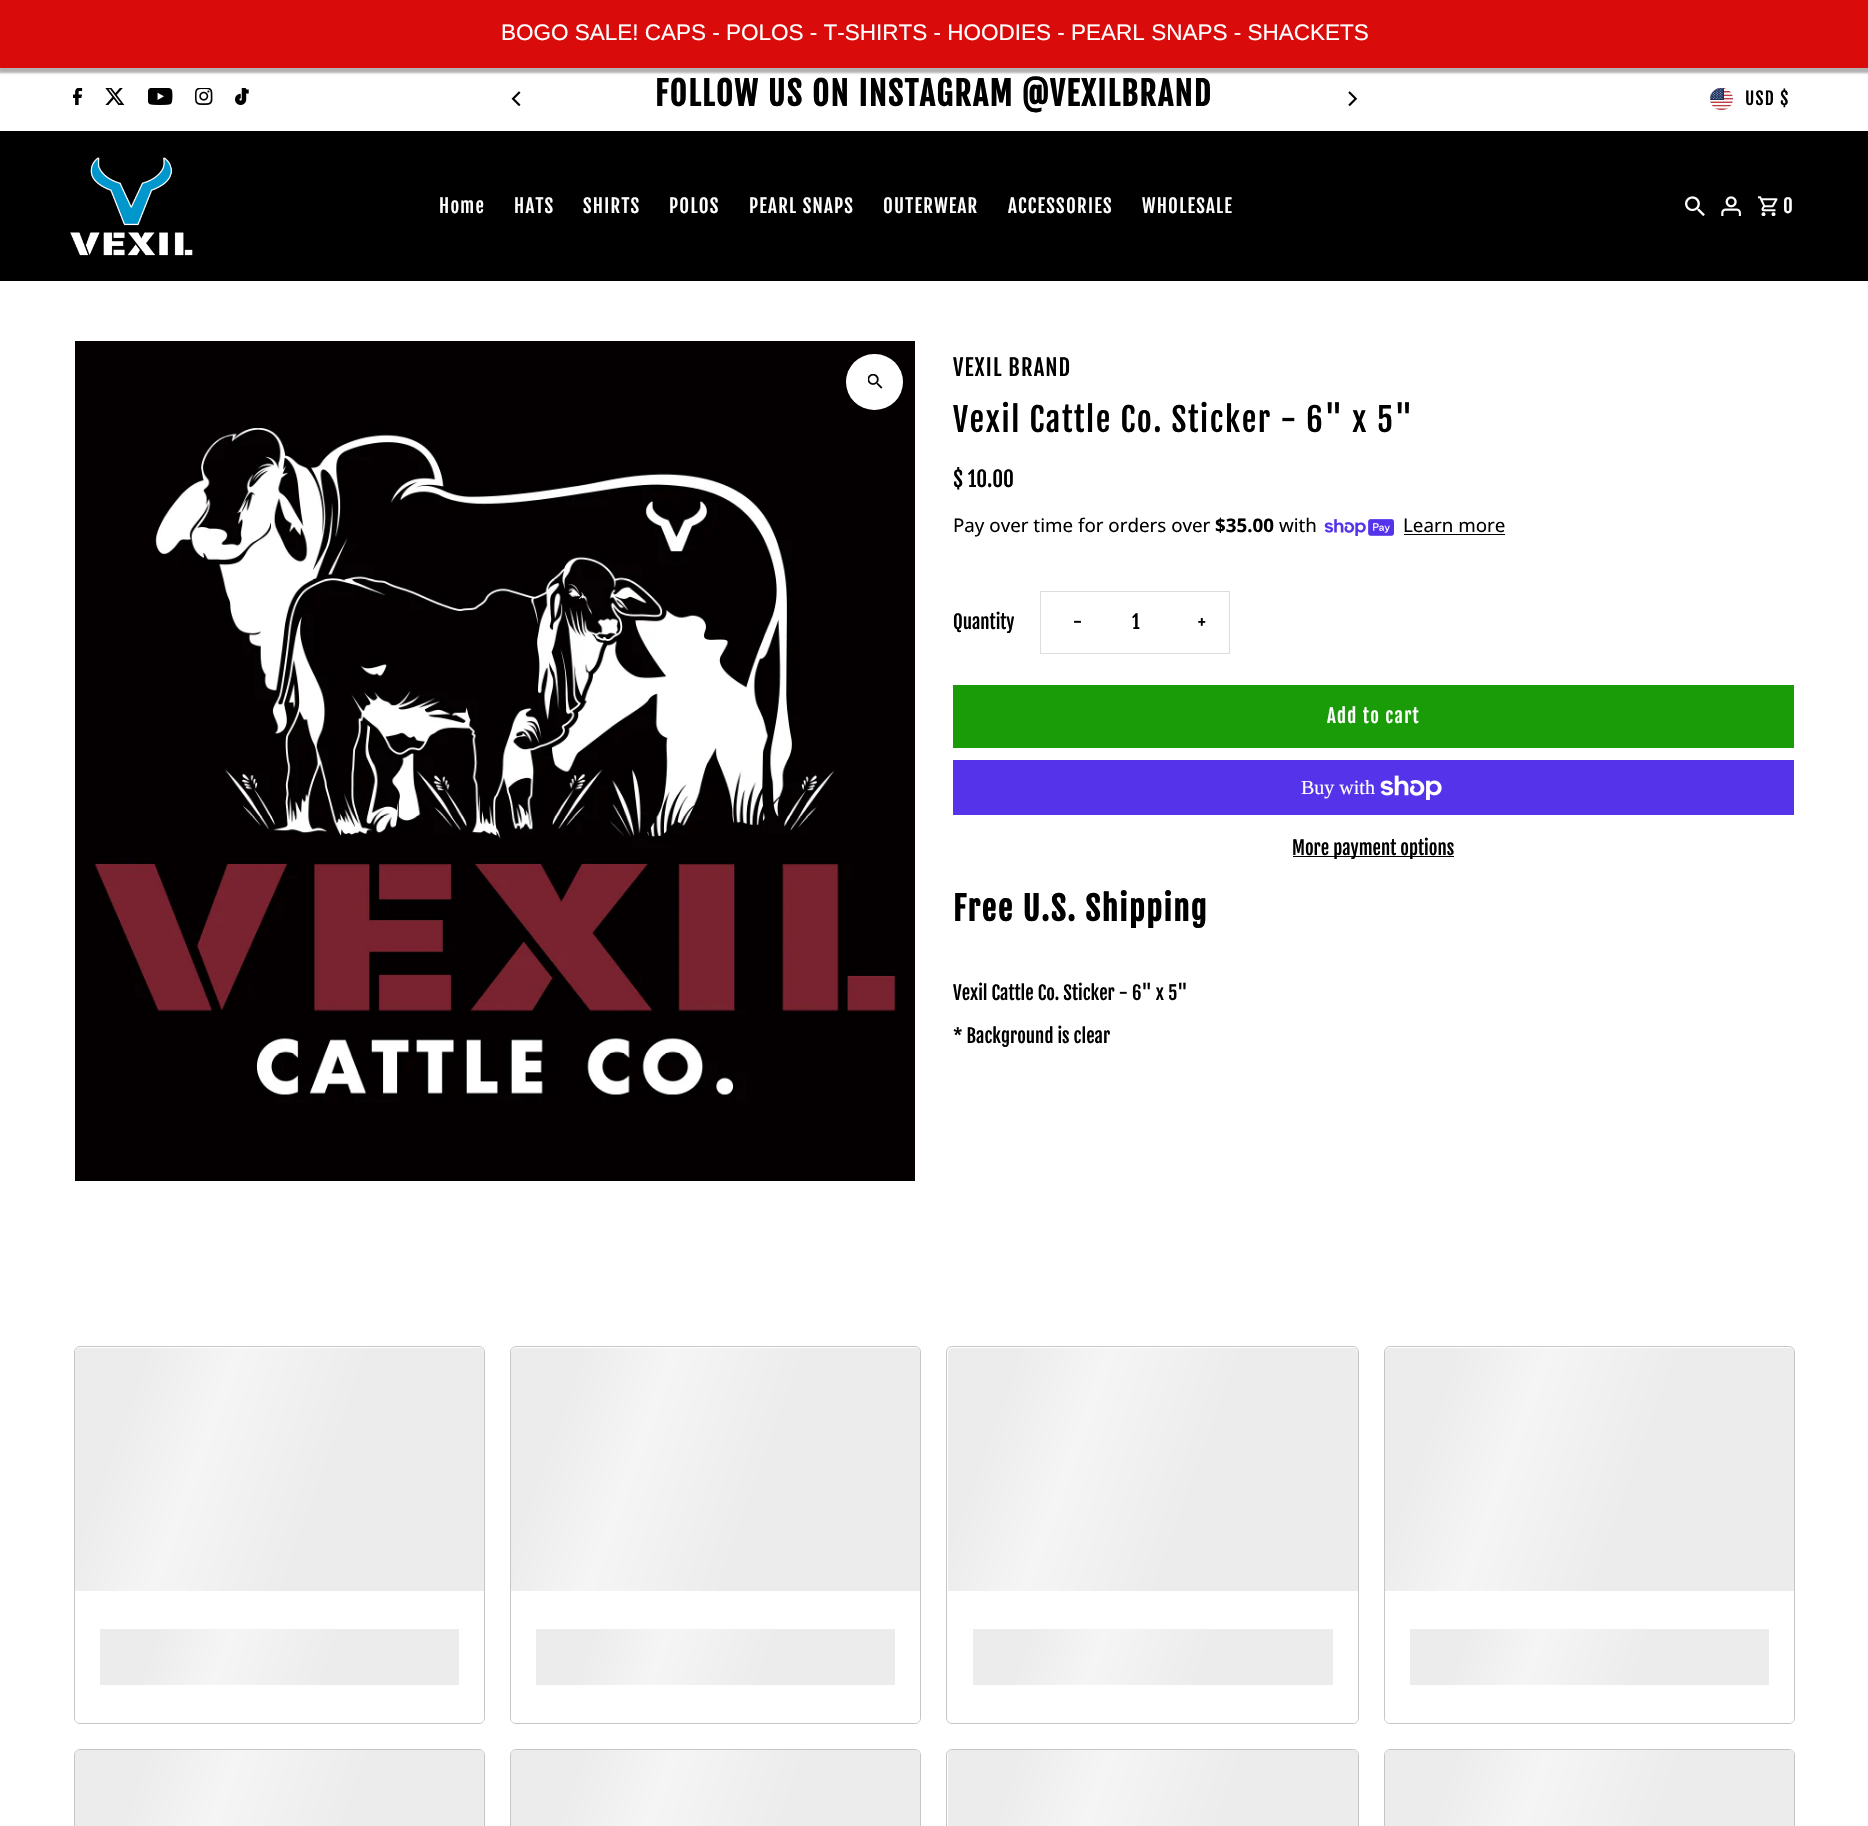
void draw(SkCanvas* c) {
SkPaint p;
p.setAntiAlias(true);
auto F=[&](const char* family, int weight, float size, bool italic = false){SkFontStyle style(weight, SkFontStyle::kNormal_Width,italic ? SkFontStyle::kItalic_Slant : SkFontStyle::kUpright_Slant);SkFont result(fontMgr->matchFamilyStyle(family, style), size);result.setSubpixel(true);return result;};
auto T=[&](const char* s, float x, float y, const SkFont& font){c->drawString(s, x, y, font, p);};
auto L=[&](const char* s, float x, float y, const SkFont& font, const SkPaint& ink, float letter, float word){std::vector<SkGlyphID> glyphs(font.countText(s, strlen(s), SkTextEncoding::kUTF8));std::vector<float> xs(glyphs.size());font.textToGlyphs(s, strlen(s), SkTextEncoding::kUTF8, glyphs);font.getXPos(glyphs, xs, x);float extra = 0;for (size_t i = 0; i < glyphs.size(); i++) {xs[i] += extra;extra += letter + word * (glyphs[i] == font.unicharToGlyph(' '));}c->drawTextBlob(SkTextBlob::MakeFromPosHGlyphs(glyphs, xs, y, font), 0, 0, ink);};
auto R=[&](float x, float y, float w, float h){c->drawRect(SkRect::MakeXYWH(x, y, w, h), p);};
auto Q=[&](float x, float y, float w, float h, float radius){c->drawRoundRect(SkRect::MakeXYWH(x, y, w, h), radius, radius, p);};
auto I=[&](const char* path, float x, float y, float w, float h){auto image = SkImages::DeferredFromEncodedData(SkData::MakeFromFileName(path));c->drawImageRect(image, SkRect::MakeXYWH(x, y, w, h), SkSamplingOptions());};
auto P=[&](const char* data, bool evenOdd = false){SkPath result = *SkParsePath::FromSVGString(data);if (evenOdd) result.setFillType(SkPathFillType::kEvenOdd);return result;};
c->clear(0xffffffff);
p.setColor(0x4d000000);
p.setMaskFilter(SkMaskFilter::MakeBlur(kNormal_SkBlurStyle, 1));
c->drawRect(SkRect::MakeXYWH(-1,3,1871,70),p);
p.setMaskFilter(nullptr);
p.setColor(0xffd90b0b);
R(0,0,1868,68);
auto f1 = F("Liberation Sans",400,22.5);
p.setColor(0xffffffff);
T("BOGO SALE! CAPS - POLOS - T-SHIRTS - HOODIES - PEARL SNAPS - SHACKETS",501,40,f1);
I("1.png",73,88,10,17);
I("2.png",105,88,20,17);
I("3.png",148,88,25,17);
I("4.png",195,88,18,17);
I("5.png",235,88,14,17);
I("6.png",511,91,10,15);
auto f2 = F("Fjalla One",700,32.5);
p.setColor(0xff000000);
L("FOLLOW US ON INSTAGRAM @VEXILBRAND",655,106,f2,p,1.6,0);
I("7.png",1348,91,10,15);
I("8.png",1710,88,23,22);
auto f3 = F("Fjalla One",400,17.5);
L("USD $",1745,105,f3,p,1.25,0);
R(0,131,1868,150);
I("9.png",70,157,123,99);
auto f4 = F("Fjalla One",400,18.75);
p.setColor(0xffffffff);
L("Home",439,213,f4,p,1.25,0);
L("HATS",514,213,f4,p,1.25,0);
L("SHIRTS",583,213,f4,p,1.25,0);
L("POLOS",669,213,f4,p,1.25,0);
L("PEARL SNAPS",749,213,f4,p,1.25,0);
L("OUTERWEAR",883,213,f4,p,1.25,0);
L("ACCESSORIES",1008,213,f4,p,1.25,0);
L("WHOLESALE",1142,213,f4,p,1.25,0);
I("10.png",1685,196,20,20);
I("11.png",1721,196,20,20);
I("12.png",1758,196,20,20);
L("0",1783,213,f4,p,1.25,0);
I("13.png",75,341,840,840);
Q(846,354,57,56,28);
I("14.png",868,374,15,15);
auto f5 = F("Fjalla One",400,22.5);
p.setColor(0xff000000);
L("VEXIL BRAND",953,376,f5,p,1.1,0);
auto f6 = F("Fjalla One",400,32.5);
L("Vexil Cattle Co. Sticker - 6\" x 5\"",953,432,f6,p,1.6,0);
auto f7 = F("Fjalla One",400,21);
T("$ 10.00",953,487,f7);
auto f8 = F("Noto Sans",400,18.75);
T("Pay over time for orders over",953,532,f8);
auto f9 = F("Noto Sans",700,18.75);
T("$35.00",1215,532,f9);
T("with",1279,532,f8);
I("15.png",1324,519,70,17);
T("Learn more",1403,532,f8);
R(1404,534,101,1);
T("Quantity",953,629,f4);
p.setStroke(true);
p.setStrokeWidth(1);
p.setColor(0xffdddddd);
c->drawRect(SkRect::MakeXYWH(1040.5,591.5,189,62),p);
p.setStroke(false);
p.setColor(0xff000000);
L("-",1073,629,f4,p,1.25,0);
T("1",1132,629,f4);
L("+",1198,629,f4,p,1.25,0);
p.setColor(0xff199c07);
R(953,685,841,63);
p.setColor(0xffffffff);
L("Add to cart",1327,723,f4,p,1.25,0);
p.setColor(0xff5433eb);
R(953,760,841,55);
auto f10 = F("Liberation Serif",400,20);
p.setColor(0xffffffff);
T("Buy with",1301,794,f10);
I("16.png",1380,775,62,25);
p.setColor(0xff000000);
R(1293,856,161,1);
T("More payment options",1292,855,f4);
L("Free U.S. Shipping",953,921,f2,p,1.6,0);
T("Vexil Cattle Co. Sticker - 6\" x 5\"",953,1000,f4);
T("* Background is clear",953,1043,f4);
p.setStroke(true);
p.setColor(0xffc7c6c6);
c->drawRoundRect(SkRect::MakeXYWH(74.5,1346.5,410,377),5.5,5.5,p);
p.setStroke(false);
p.setColor(0xffffffff);
Q(75,1348,409,375,5);
{
const SkColor colors[] = {0xffececec,0xfff5f5f5,0xffececec};
const float stops[] = {.08,.18,.33};
const SkPoint ends[] = {{84,1324}, {884,1615}};
p.setShader(SkGradientShader::MakeLinear(ends, colors, stops, 3, SkTileMode::kClamp));
p.setAlpha(255);
}
c->drawPath(P("M80 1348h399c3 0 5 2 5 5v238h-409v-238c0-3 2-5 5-5z"),p);
{
const SkColor colors[] = {0xffececec,0xfff5f5f5,0xffececec};
const float stops[] = {.08,.18,.33};
const SkPoint ends[] = {{133,1538}, {785,1775}};
p.setShader(SkGradientShader::MakeLinear(ends, colors, stops, 3, SkTileMode::kClamp));
p.setAlpha(255);
}
R(100,1629,359,56);
p.setStroke(true);
p.setShader(nullptr);
p.setColor(0xffc7c6c6);
c->drawRoundRect(SkRect::MakeXYWH(74.5,1749.5,410,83),5.5,5.5,p);
p.setStroke(false);
{
const SkColor colors[] = {0xffececec,0xfff5f5f5,0xffececec};
const float stops[] = {.08,.18,.33};
const SkPoint ends[] = {{84,1726}, {884,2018}};
p.setShader(SkGradientShader::MakeLinear(ends, colors, stops, 3, SkTileMode::kClamp));
p.setAlpha(255);
}
c->drawPath(P("M80 1750h399c3 0 5 2 5 5v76h-409v-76c0-3 2-5 5-5z"),p);
p.setStroke(true);
p.setShader(nullptr);
p.setColor(0xffc7c6c6);
c->drawRoundRect(SkRect::MakeXYWH(510.5,1346.5,410,377),5.5,5.5,p);
p.setStroke(false);
p.setColor(0xffffffff);
Q(511,1348,409,375,5);
{
const SkColor colors[] = {0xffececec,0xfff5f5f5,0xffececec};
const float stops[] = {.08,.18,.33};
const SkPoint ends[] = {{520,1324}, {1320,1615}};
p.setShader(SkGradientShader::MakeLinear(ends, colors, stops, 3, SkTileMode::kClamp));
p.setAlpha(255);
}
c->drawPath(P("M516 1348h399c3 0 5 2 5 5v238h-409v-238c0-3 2-5 5-5z"),p);
{
const SkColor colors[] = {0xffececec,0xfff5f5f5,0xffececec};
const float stops[] = {.08,.18,.33};
const SkPoint ends[] = {{569,1538}, {1221,1775}};
p.setShader(SkGradientShader::MakeLinear(ends, colors, stops, 3, SkTileMode::kClamp));
p.setAlpha(255);
}
R(536,1629,359,56);
p.setStroke(true);
p.setShader(nullptr);
p.setColor(0xffc7c6c6);
c->drawRoundRect(SkRect::MakeXYWH(510.5,1749.5,410,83),5.5,5.5,p);
p.setStroke(false);
{
const SkColor colors[] = {0xffececec,0xfff5f5f5,0xffececec};
const float stops[] = {.08,.18,.33};
const SkPoint ends[] = {{520,1726}, {1320,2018}};
p.setShader(SkGradientShader::MakeLinear(ends, colors, stops, 3, SkTileMode::kClamp));
p.setAlpha(255);
}
c->drawPath(P("M516 1750h399c3 0 5 2 5 5v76h-409v-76c0-3 2-5 5-5z"),p);
p.setStroke(true);
p.setShader(nullptr);
p.setColor(0xffc7c6c6);
c->drawRoundRect(SkRect::MakeXYWH(946.5,1346.5,412,377),5.5,5.5,p);
p.setStroke(false);
p.setColor(0xffffffff);
Q(948,1348,410,375,5);
{
const SkColor colors[] = {0xffececec,0xfff5f5f5,0xffececec};
const float stops[] = {.08,.18,.33};
const SkPoint ends[] = {{956,1323}, {1759,1615}};
p.setShader(SkGradientShader::MakeLinear(ends, colors, stops, 3, SkTileMode::kClamp));
p.setAlpha(255);
}
c->drawPath(P("M953 1348h400c3 0 5 2 5 5v238h-410v-238c0-3 2-5 5-5z"),p);
{
const SkColor colors[] = {0xffececec,0xfff5f5f5,0xffececec};
const float stops[] = {.08,.18,.33};
const SkPoint ends[] = {{1006,1538}, {1659,1776}};
p.setShader(SkGradientShader::MakeLinear(ends, colors, stops, 3, SkTileMode::kClamp));
p.setAlpha(255);
}
R(973,1629,360,56);
p.setStroke(true);
p.setShader(nullptr);
p.setColor(0xffc7c6c6);
c->drawRoundRect(SkRect::MakeXYWH(946.5,1749.5,412,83),5.5,5.5,p);
p.setStroke(false);
{
const SkColor colors[] = {0xffececec,0xfff5f5f5,0xffececec};
const float stops[] = {.08,.18,.33};
const SkPoint ends[] = {{956,1726}, {1759,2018}};
p.setShader(SkGradientShader::MakeLinear(ends, colors, stops, 3, SkTileMode::kClamp));
p.setAlpha(255);
}
c->drawPath(P("M953 1750h400c3 0 5 2 5 5v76h-410v-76c0-3 2-5 5-5z"),p);
p.setStroke(true);
p.setShader(nullptr);
p.setColor(0xffc7c6c6);
c->drawRoundRect(SkRect::MakeXYWH(1384.5,1346.5,410,377),5.5,5.5,p);
p.setStroke(false);
p.setColor(0xffffffff);
Q(1385,1348,409,375,5);
{
const SkColor colors[] = {0xffececec,0xfff5f5f5,0xffececec};
const float stops[] = {.08,.18,.33};
const SkPoint ends[] = {{1394,1324}, {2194,1615}};
p.setShader(SkGradientShader::MakeLinear(ends, colors, stops, 3, SkTileMode::kClamp));
p.setAlpha(255);
}
c->drawPath(P("M1390 1348h399c3 0 5 2 5 5v238h-409v-238c0-3 2-5 5-5z"),p);
{
const SkColor colors[] = {0xffececec,0xfff5f5f5,0xffececec};
const float stops[] = {.08,.18,.33};
const SkPoint ends[] = {{1443,1538}, {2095,1775}};
p.setShader(SkGradientShader::MakeLinear(ends, colors, stops, 3, SkTileMode::kClamp));
p.setAlpha(255);
}
R(1410,1629,359,56);
p.setStroke(true);
p.setShader(nullptr);
p.setColor(0xffc7c6c6);
c->drawRoundRect(SkRect::MakeXYWH(1384.5,1749.5,410,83),5.5,5.5,p);
p.setStroke(false);
{
const SkColor colors[] = {0xffececec,0xfff5f5f5,0xffececec};
const float stops[] = {.08,.18,.33};
const SkPoint ends[] = {{1394,1726}, {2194,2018}};
p.setShader(SkGradientShader::MakeLinear(ends, colors, stops, 3, SkTileMode::kClamp));
p.setAlpha(255);
}
c->drawPath(P("M1390 1750h399c3 0 5 2 5 5v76h-409v-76c0-3 2-5 5-5z"),p);
}
